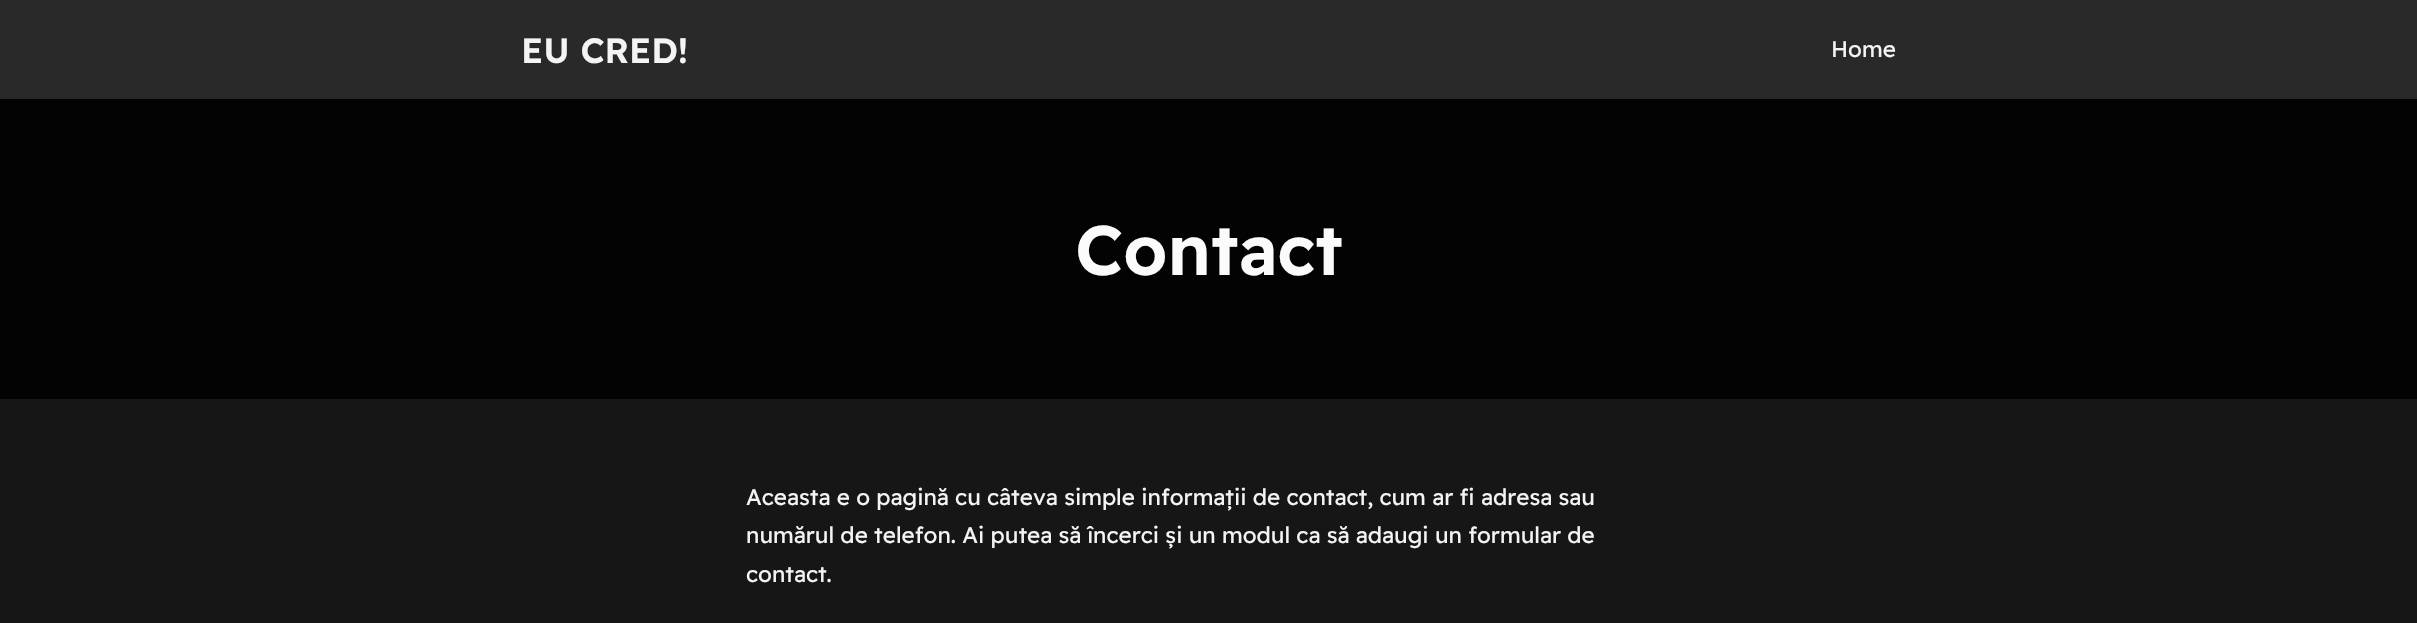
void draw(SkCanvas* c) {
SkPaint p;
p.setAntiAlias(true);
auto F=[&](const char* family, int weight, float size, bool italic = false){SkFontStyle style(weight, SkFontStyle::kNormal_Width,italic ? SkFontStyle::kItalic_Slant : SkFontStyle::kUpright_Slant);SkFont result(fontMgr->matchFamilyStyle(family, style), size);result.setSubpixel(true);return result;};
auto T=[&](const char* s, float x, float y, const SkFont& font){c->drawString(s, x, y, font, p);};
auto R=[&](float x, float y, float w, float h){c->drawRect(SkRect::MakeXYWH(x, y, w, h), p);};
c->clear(0xff161616);
p.setColor(0xff292929);
R(0,0,2417,99);
auto f1 = F("Readex Pro",600,35);
p.setColor(0xfff4f4f4);
T("EU CRED!",521,63,f1);
auto f2 = F("Readex Pro",400,22.5);
T("Home",1831,57,f2);
p.setColor(0xff030303);
R(0,99,2417,300);
auto f3 = F("Readex Pro",600,70);
p.setColor(0xfffbfbfb);
T("Contact",1075,275,f3);
p.setColor(0xfff4f4f4);
T("Aceasta e o pagină cu câteva simple informații de contact, cum ar fi adresa sau",746,505,f2);
T("numărul de telefon. Ai putea să încerci și un modul ca să adaugi un formular de",746,543,f2);
T("contact.",746,582,f2);
}
